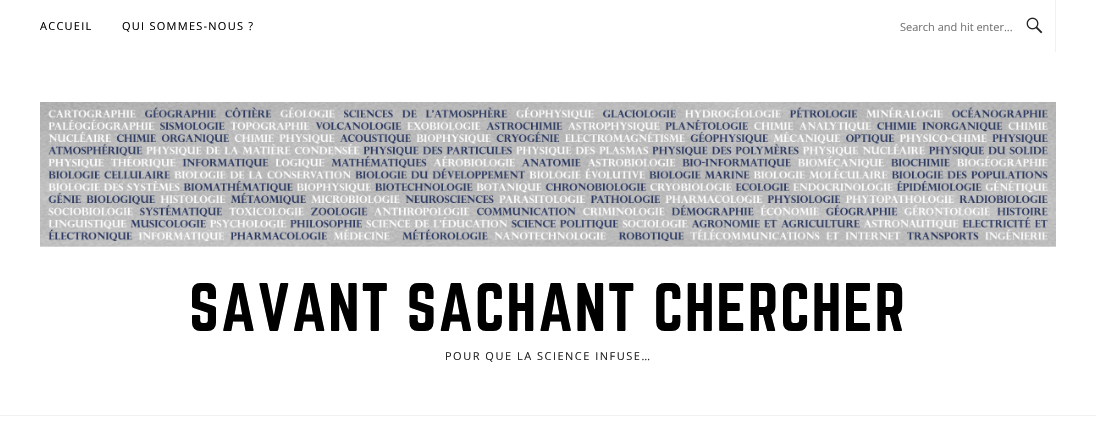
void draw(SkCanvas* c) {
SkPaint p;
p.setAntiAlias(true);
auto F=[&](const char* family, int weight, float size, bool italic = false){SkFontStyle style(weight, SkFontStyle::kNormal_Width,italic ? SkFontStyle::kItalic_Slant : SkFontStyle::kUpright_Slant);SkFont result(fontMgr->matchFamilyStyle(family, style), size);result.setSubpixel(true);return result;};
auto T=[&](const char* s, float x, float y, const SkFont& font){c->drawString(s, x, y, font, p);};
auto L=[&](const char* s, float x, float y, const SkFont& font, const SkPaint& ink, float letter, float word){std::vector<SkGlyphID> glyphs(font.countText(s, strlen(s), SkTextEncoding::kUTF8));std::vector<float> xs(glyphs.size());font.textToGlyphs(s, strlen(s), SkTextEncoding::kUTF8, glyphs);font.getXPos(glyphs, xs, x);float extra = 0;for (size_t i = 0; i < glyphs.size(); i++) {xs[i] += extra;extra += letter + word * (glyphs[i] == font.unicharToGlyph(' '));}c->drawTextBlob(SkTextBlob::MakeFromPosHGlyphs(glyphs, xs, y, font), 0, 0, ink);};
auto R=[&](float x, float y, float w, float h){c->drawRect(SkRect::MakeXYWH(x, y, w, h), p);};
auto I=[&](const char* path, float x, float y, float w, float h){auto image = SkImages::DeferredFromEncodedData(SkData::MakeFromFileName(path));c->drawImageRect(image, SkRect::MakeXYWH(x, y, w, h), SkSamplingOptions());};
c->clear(0xffffffff);
auto f1 = F("Open Sans",400,11);
p.setColor(0xff000000);
L("ACCUEIL",40,30,f1,p,1.25,0);
L("QUI SOMMES-NOUS ?",122,30,f1,p,1.25,0);
p.setColor(0xfff1f1f1);
R(1055,0,1,52);
p.setColor(0xff757575);
T("Search and hit enter...",900,31,f1);
I("1.png",1026,17,17,17);
I("2.png",40,102,1016,145);
auto f2 = F("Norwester",400,60);
p.setColor(0xff000000);
L("SAVANT SACHANT CHERCHER",189,331,f2,p,1.5,0);
p.setColor(0xff222222);
L("POUR QUE LA SCIENCE INFUSE…",445,360,f1,p,1.5,0);
p.setColor(0xfff1f1f1);
R(0,415,1096,1);
}
